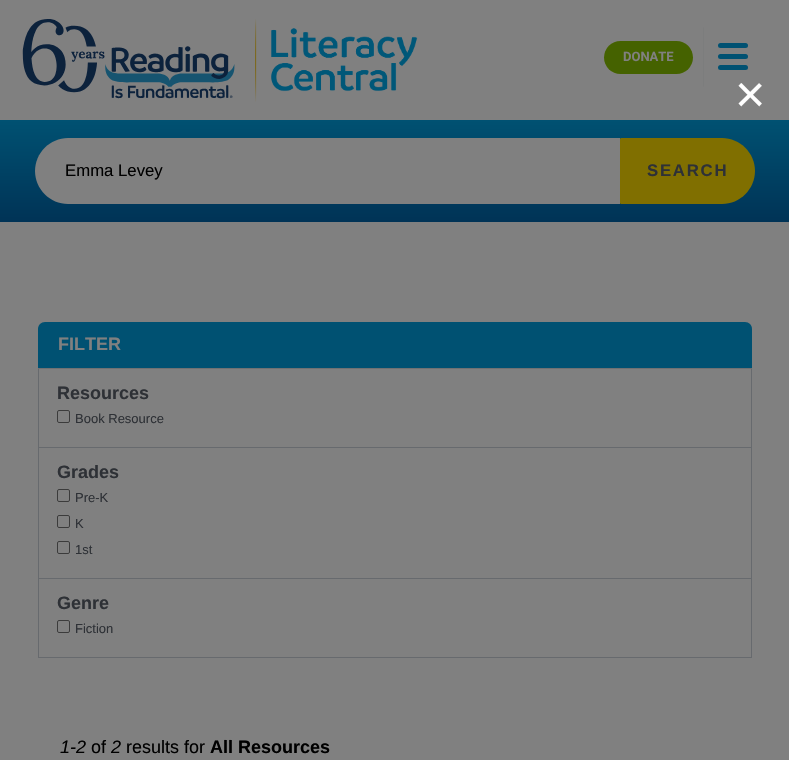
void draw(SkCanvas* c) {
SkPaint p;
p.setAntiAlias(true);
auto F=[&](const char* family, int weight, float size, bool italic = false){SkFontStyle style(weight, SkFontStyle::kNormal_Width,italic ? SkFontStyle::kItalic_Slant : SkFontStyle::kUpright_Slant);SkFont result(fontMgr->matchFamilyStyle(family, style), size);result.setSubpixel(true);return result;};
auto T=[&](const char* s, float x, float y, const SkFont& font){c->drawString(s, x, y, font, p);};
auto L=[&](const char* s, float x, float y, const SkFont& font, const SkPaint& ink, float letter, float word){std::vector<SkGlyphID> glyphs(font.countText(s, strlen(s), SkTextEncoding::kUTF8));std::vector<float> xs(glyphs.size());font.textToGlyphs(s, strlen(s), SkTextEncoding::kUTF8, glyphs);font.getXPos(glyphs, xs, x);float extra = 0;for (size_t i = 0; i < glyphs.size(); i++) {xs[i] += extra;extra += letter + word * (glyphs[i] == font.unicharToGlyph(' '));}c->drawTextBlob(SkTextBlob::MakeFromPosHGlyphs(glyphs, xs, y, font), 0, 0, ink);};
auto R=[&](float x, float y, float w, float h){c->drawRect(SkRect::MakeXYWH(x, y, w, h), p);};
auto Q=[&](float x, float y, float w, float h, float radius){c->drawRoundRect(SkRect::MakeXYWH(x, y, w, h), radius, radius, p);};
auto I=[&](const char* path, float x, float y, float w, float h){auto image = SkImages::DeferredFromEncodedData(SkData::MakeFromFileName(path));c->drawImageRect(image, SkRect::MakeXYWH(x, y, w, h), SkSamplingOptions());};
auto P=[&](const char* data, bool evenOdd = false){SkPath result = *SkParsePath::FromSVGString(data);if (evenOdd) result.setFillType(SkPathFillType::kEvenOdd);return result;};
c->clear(0xff808080);
I("1.png",22,19,213,80);
I("2.png",255,19,2,83);
I("3.png",271,28,147,64);
p.setColor(0xff456200);
Q(604,41,89,33,16.5);
auto f1 = F("Roboto",700,13);
p.setColor(0xff808080);
T("DONATE",623,61,f1);
p.setColor(0xff7c7d7d);
c->drawPath(P("M703 87v-60l1 1v58z"),p);
p.setColor(0xff005172);
Q(718,43,30,5,2.5);
Q(718,54,30,5,2.5);
Q(718,65,30,5,2.5);
auto f2 = F("Liberation Sans",400,52);
p.setColor(0xffffffff);
T("×",735,112,f2);
auto f3 = F("Liberation Sans",400,18,true);
p.setColor(0xff000000);
T("1-2",60,753,f3);
auto f4 = F("Liberation Sans",400,18);
T("of",91,753,f4);
T("2",111,753,f3);
T("results for",126,753,f4);
auto f5 = F("Liberation Sans",700,18);
T("All Resources",210,753,f5);
p.setColor(0xff005172);
c->drawPath(P("M45 322h700c4 0 7 3 7 7v40h-714v-40c0-4 3-7 7-7z"),p);
p.setColor(0xff6f7173);
R(38,368,714,1);
p.setColor(0xff808080);
T("FILTER",58,350,f5);
p.setColor(0xff676a6e);
R(751,369,1,289);
R(38,447,714,1);
R(38,369,1,79);
p.setColor(0xff2e3136);
T("Resources",57,399,f5);
p.setStroke(true);
p.setStrokeWidth(1);
p.setColor(0xff3b3b3b);
c->drawRoundRect(SkRect::MakeXYWH(57.5,410.5,12,12),1.5,1.5,p);
auto f6 = F("Liberation Sans",400,13);
p.setStroke(false);
p.setColor(0xff2e3136);
T("Book Resource",75,423,f6);
p.setColor(0xff676a6e);
R(38,578,714,1);
R(38,448,1,131);
p.setColor(0xff2e3136);
T("Grades",57,478,f5);
p.setStroke(true);
p.setColor(0xff3b3b3b);
c->drawRoundRect(SkRect::MakeXYWH(57.5,489.5,12,12),1.5,1.5,p);
p.setStroke(false);
p.setColor(0xff2e3136);
T("Pre-K",75,502,f6);
p.setStroke(true);
p.setColor(0xff3b3b3b);
c->drawRoundRect(SkRect::MakeXYWH(57.5,515.5,12,12),1.5,1.5,p);
p.setStroke(false);
p.setColor(0xff2e3136);
T("K",75,528,f6);
p.setStroke(true);
p.setColor(0xff3b3b3b);
c->drawRoundRect(SkRect::MakeXYWH(57.5,541.5,12,12),1.5,1.5,p);
p.setStroke(false);
p.setColor(0xff2e3136);
T("1st",75,554,f6);
p.setColor(0xff676a6e);
R(38,657,714,1);
R(38,579,1,79);
p.setColor(0xff2e3136);
T("Genre",57,609,f5);
p.setStroke(true);
p.setColor(0xff3b3b3b);
c->drawRoundRect(SkRect::MakeXYWH(57.5,620.5,12,12),1.5,1.5,p);
p.setStroke(false);
p.setColor(0xff2e3136);
T("Fiction",75,633,f6);
{
const SkColor colors[] = {0xff003356,0xff005172};
const float stops[] = {0,1};
const SkPoint ends[] = {{395,222}, {395,120}};
p.setShader(SkGradientShader::MakeLinear(ends, colors, stops, 2, SkTileMode::kClamp));
p.setAlpha(255);
}
R(0,120,789,102);
p.setShader(nullptr);
p.setColor(0xff808080);
c->drawPath(P("M68 138h552v66h-552c-18 0-33-15-33-33c0-18 15-33 33-33z"),p);
auto f7 = F("Liberation Sans",400,16.75);
p.setColor(0xff000000);
T("Emma Levey",65,176,f7);
p.setColor(0xff806f00);
c->drawPath(P("M621.5 138h100.5c18 0 33 15 33 33c0 18-15 33-33 33h-100.5c-1 0-1.5-.5-1.5-1.5v-63c0-1 .5-1.5 1.5-1.5z"),p);
auto f8 = F("Liberation Sans",700,16.75);
p.setColor(0xff2e3136);
L("SEARCH",647,176,f8,p,1.75,0);
}
